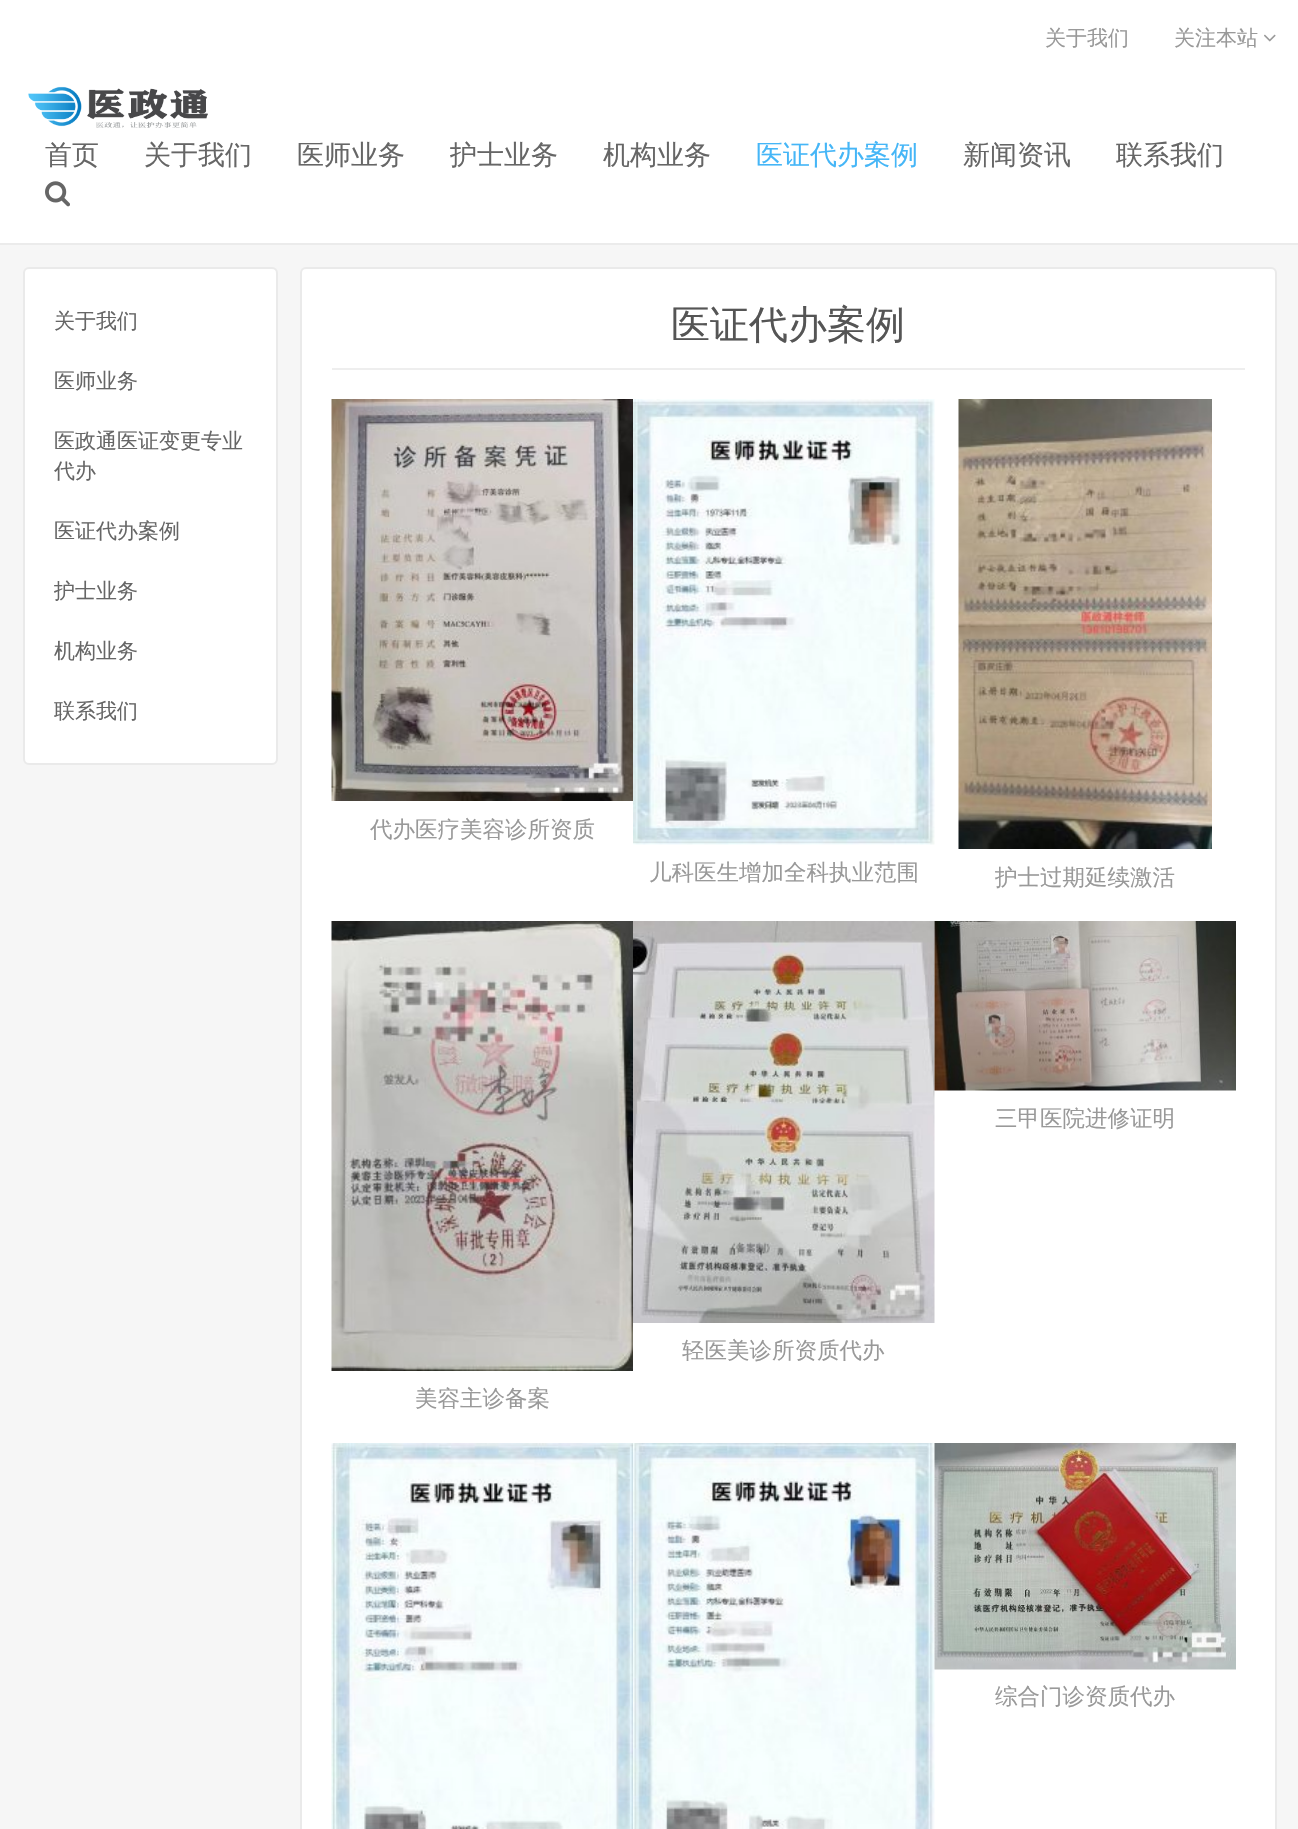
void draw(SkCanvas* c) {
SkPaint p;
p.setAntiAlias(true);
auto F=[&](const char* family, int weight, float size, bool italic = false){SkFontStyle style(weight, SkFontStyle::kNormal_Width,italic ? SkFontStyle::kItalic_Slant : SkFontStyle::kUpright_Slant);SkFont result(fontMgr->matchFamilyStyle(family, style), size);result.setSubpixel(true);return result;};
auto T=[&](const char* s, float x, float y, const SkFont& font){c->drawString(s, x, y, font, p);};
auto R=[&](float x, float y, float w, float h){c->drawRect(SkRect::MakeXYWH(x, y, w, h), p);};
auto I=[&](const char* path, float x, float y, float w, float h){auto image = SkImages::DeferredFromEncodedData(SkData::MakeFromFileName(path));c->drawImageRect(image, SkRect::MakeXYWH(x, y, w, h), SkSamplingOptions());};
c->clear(0xfff6f6f6);
p.setColor(0xffffffff);
R(0,0,1298,243);
p.setColor(0xffebebeb);
R(0,243,1298,2);
auto f1 = F("WenQuanYi Zen Hei",500,21);
p.setColor(0xff999999);
T("关于我们",1045,45,f1);
T("关注本站",1174,45,f1);
I("1.png",1264,34,12,8);
I("2.png",28,86,180,42);
auto f2 = F("WenQuanYi Zen Hei",500,27);
p.setColor(0xff666666);
T("首页",45,164,f2);
T("关于我们",144,164,f2);
T("医师业务",297,164,f2);
T("护士业务",450,164,f2);
T("机构业务",603,164,f2);
p.setColor(0xff45b6f7);
T("医证代办案例",756,164,f2);
p.setColor(0xff666666);
T("新闻资讯",963,164,f2);
T("联系我们",1116,164,f2);
I("3.png",45,181,25,26);
p.setColor(0xffffffff);
c->drawRoundRect(SkRect::MakeXYWH(24,268,253,496),5,5,p);
p.setStroke(true);
p.setStrokeWidth(2);
p.setColor(0xffeaeaea);
c->drawRoundRect(SkRect::MakeXYWH(24,268,253,496),5,5,p);
p.setStroke(false);
p.setColor(0xff666666);
T("关于我们",54,328,f1);
T("医师业务",54,388,f1);
T("医政通医证变更专业",54,448,f1);
T("代办",54,478,f1);
T("医证代办案例",54,538,f1);
T("护士业务",54,598,f1);
T("机构业务",54,658,f1);
T("联系我们",54,718,f1);
p.setColor(0xffffffff);
c->drawRoundRect(SkRect::MakeXYWH(301,268,975,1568),5,5,p);
p.setStroke(true);
p.setColor(0xffeaeaea);
c->drawRoundRect(SkRect::MakeXYWH(301,268,975,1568),5,5,p);
p.setStroke(false);
p.setColor(0xffeeeeee);
R(332,368,913,2);
auto f3 = F("WenQuanYi Zen Hei",500,39);
p.setColor(0xff555555);
T("医证代办案例",671,338,f3);
I("4.png",331,399,302,402);
auto f4 = F("WenQuanYi Zen Hei",500,22.5);
p.setColor(0xff999999);
T("代办医疗美容诊所资质",370,837,f4);
I("5.png",633,399,302,446);
T("儿科医生增加全科执业范围",649,880,f4);
I("6.png",958,399,254,450);
T("护士过期延续激活",995,885,f4);
I("8.png",633,921,302,402);
I("7.png",934,921,302,170);
T("三甲医院进修证明",995,1126,f4);
T("轻医美诊所资质代办",682,1358,f4);
I("9.png",331,921,302,450);
T("美容主诊备案",415,1406,f4);
I("10.png",331,1443,302,386);
I("11.png",633,1443,302,386);
I("12.png",934,1443,302,227);
T("综合门诊资质代办",995,1704,f4);
}
